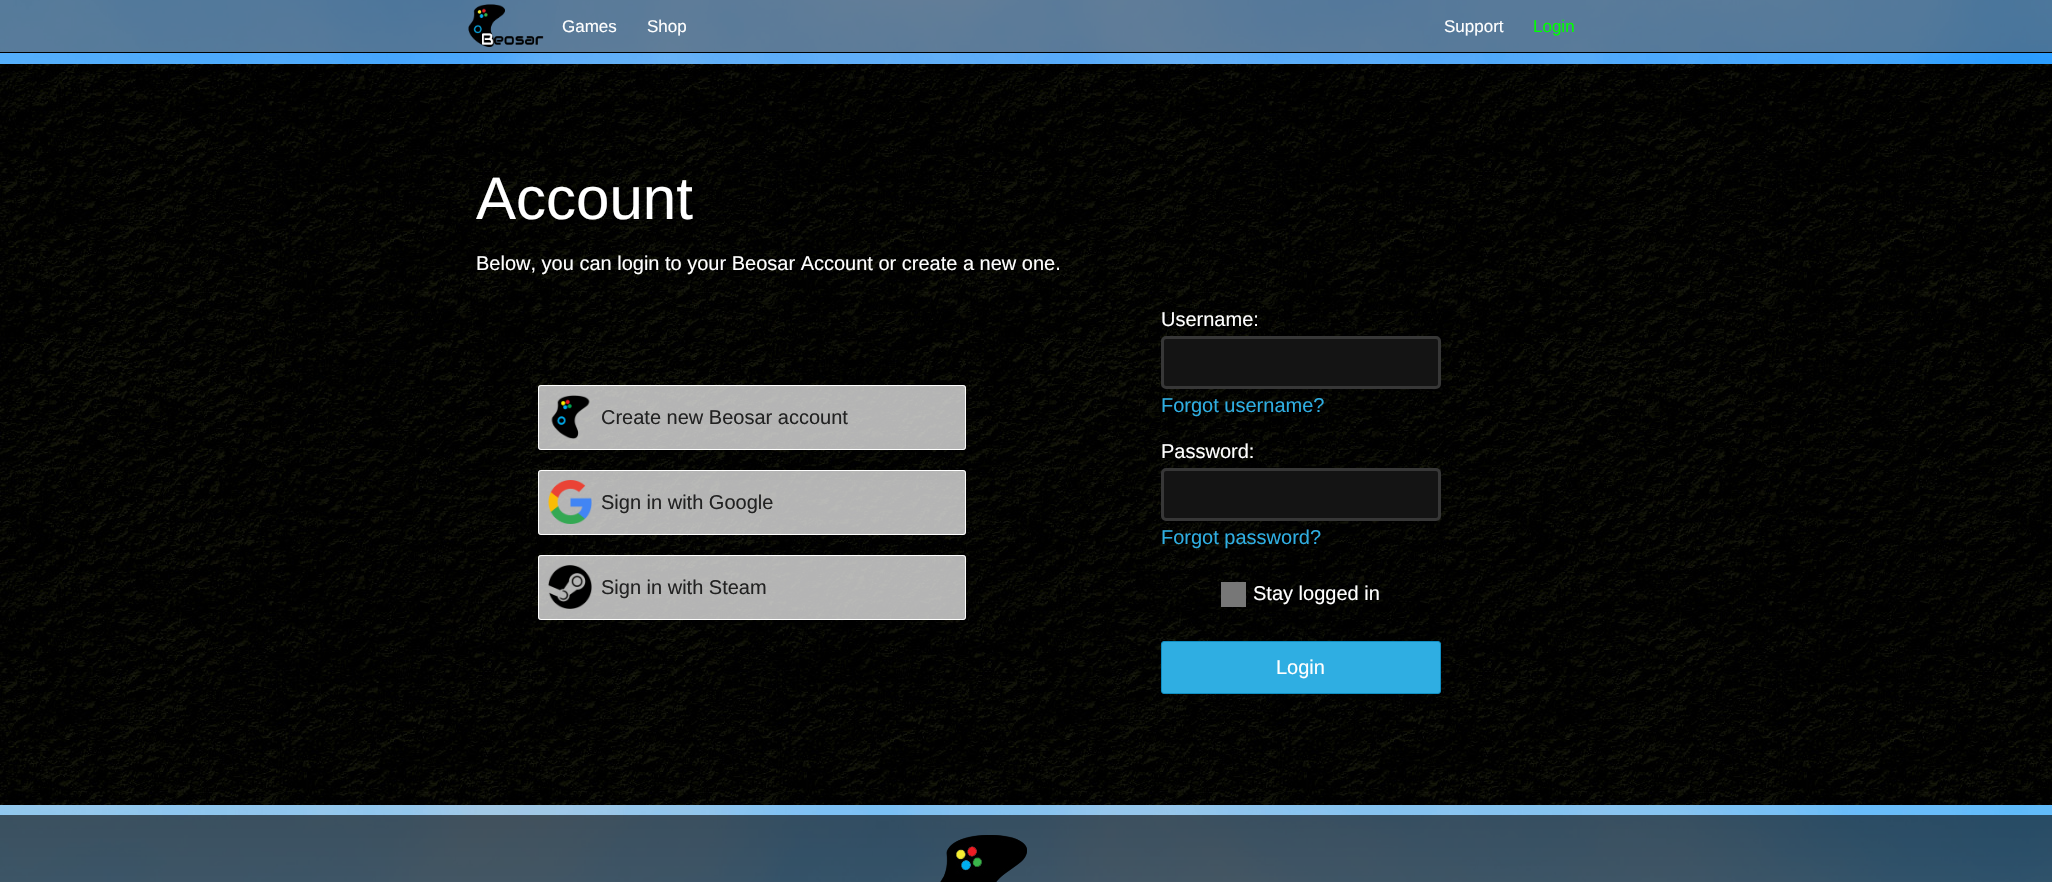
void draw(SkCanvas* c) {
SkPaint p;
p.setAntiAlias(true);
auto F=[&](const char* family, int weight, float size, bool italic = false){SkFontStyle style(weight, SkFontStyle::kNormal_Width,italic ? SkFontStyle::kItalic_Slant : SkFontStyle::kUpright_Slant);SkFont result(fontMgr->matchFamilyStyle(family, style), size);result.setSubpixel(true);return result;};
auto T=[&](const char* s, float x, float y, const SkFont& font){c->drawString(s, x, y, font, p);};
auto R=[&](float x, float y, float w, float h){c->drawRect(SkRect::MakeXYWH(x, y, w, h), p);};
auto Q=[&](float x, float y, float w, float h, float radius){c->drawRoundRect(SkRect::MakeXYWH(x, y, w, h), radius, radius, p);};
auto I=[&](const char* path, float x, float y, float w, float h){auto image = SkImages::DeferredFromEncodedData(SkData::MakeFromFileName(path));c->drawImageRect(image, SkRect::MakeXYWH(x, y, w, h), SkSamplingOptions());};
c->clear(0xffffffff);
I("1.png",0,0,2052,882);
p.setColor(0x995a5a5a);
R(0,0,2052,52);
p.setColor(0xff000000);
R(0,52,2052,1);
I("2.png",468,4,76,43);
auto f1 = F("Liberation Sans",400,17);
p.setColor(0xffffffff);
T("Games",562,32,f1);
T("Shop",647,32,f1);
T("Support",1444,32,f1);
p.setColor(0xff00ff00);
T("Login",1533,32,f1);
I("3.png",0,64,2052,741);
auto f2 = F("Liberation Sans",400,60);
p.setColor(0xffffffff);
T("Account",476,219,f2);
auto f3 = F("Liberation Sans",400,20);
T("Below, you can login to your Beosar Account or create a new one.",476,270,f3);
p.setColor(0xbff0f0f0);
Q(538,385,428,65,3);
I("4.png",551,395,39,44);
p.setStroke(true);
p.setStrokeWidth(1);
p.setColor(0xffffffff);
c->drawRoundRect(SkRect::MakeXYWH(538.5,385.5,427,64),2.5,2.5,p);
p.setStroke(false);
p.setColor(0xff222222);
T("Create new Beosar account",601,424,f3);
p.setColor(0xbff0f0f0);
Q(538,470,428,65,3);
I("5.png",548,480,44,44);
p.setStroke(true);
p.setColor(0xffffffff);
c->drawRoundRect(SkRect::MakeXYWH(538.5,470.5,427,64),2.5,2.5,p);
p.setStroke(false);
p.setColor(0xff222222);
T("Sign in with Google",601,509,f3);
p.setColor(0xbff0f0f0);
Q(538,555,428,65,3);
I("6.png",548,565,44,44);
p.setStroke(true);
p.setColor(0xffffffff);
c->drawRoundRect(SkRect::MakeXYWH(538.5,555.5,427,64),2.5,2.5,p);
p.setStroke(false);
p.setColor(0xff222222);
T("Sign in with Steam",601,594,f3);
p.setColor(0xffffffff);
T("Username:",1161,326,f3);
p.setColor(0xff141414);
c->drawRoundRect(SkRect::MakeXYWH(1162.5,337.5,277,50),3.5,3.5,p);
p.setStroke(true);
p.setStrokeWidth(3);
p.setColor(0xff373737);
c->drawRoundRect(SkRect::MakeXYWH(1162.5,337.5,277,50),3.5,3.5,p);
p.setStroke(false);
p.setColor(0xff2faee2);
T("Forgot username?",1161,412,f3);
p.setColor(0xffffffff);
T("Password:",1161,458,f3);
p.setColor(0xff141414);
c->drawRoundRect(SkRect::MakeXYWH(1162.5,469.5,277,50),3.5,3.5,p);
p.setStroke(true);
p.setColor(0xff373737);
c->drawRoundRect(SkRect::MakeXYWH(1162.5,469.5,277,50),3.5,3.5,p);
p.setStroke(false);
p.setColor(0xff2faee2);
T("Forgot password?",1161,544,f3);
p.setColor(0xff777777);
R(1221,582,25,25);
p.setColor(0xffffffff);
T("Stay logged in",1253,600,f3);
p.setColor(0xff2faee2);
c->drawRoundRect(SkRect::MakeXYWH(1161.5,641.5,279,52),2.5,2.5,p);
p.setStroke(true);
p.setStrokeWidth(1);
p.setColor(0xff0f8ec2);
c->drawRoundRect(SkRect::MakeXYWH(1161.5,641.5,279,52),2.5,2.5,p);
p.setStroke(false);
p.setColor(0xffffffff);
T("Login",1276,674,f3);
{
const SkColor colors[] = {0x99000000,0x66000000};
const float stops[] = {0,1};
const SkPoint ends[] = {{1026,815}, {1026,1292}};
p.setShader(SkGradientShader::MakeLinear(ends, colors, stops, 2, SkTileMode::kClamp));
p.setAlpha(255);
}
R(0,815,2052,67);
I("7.png",940,835,87,47);
}
